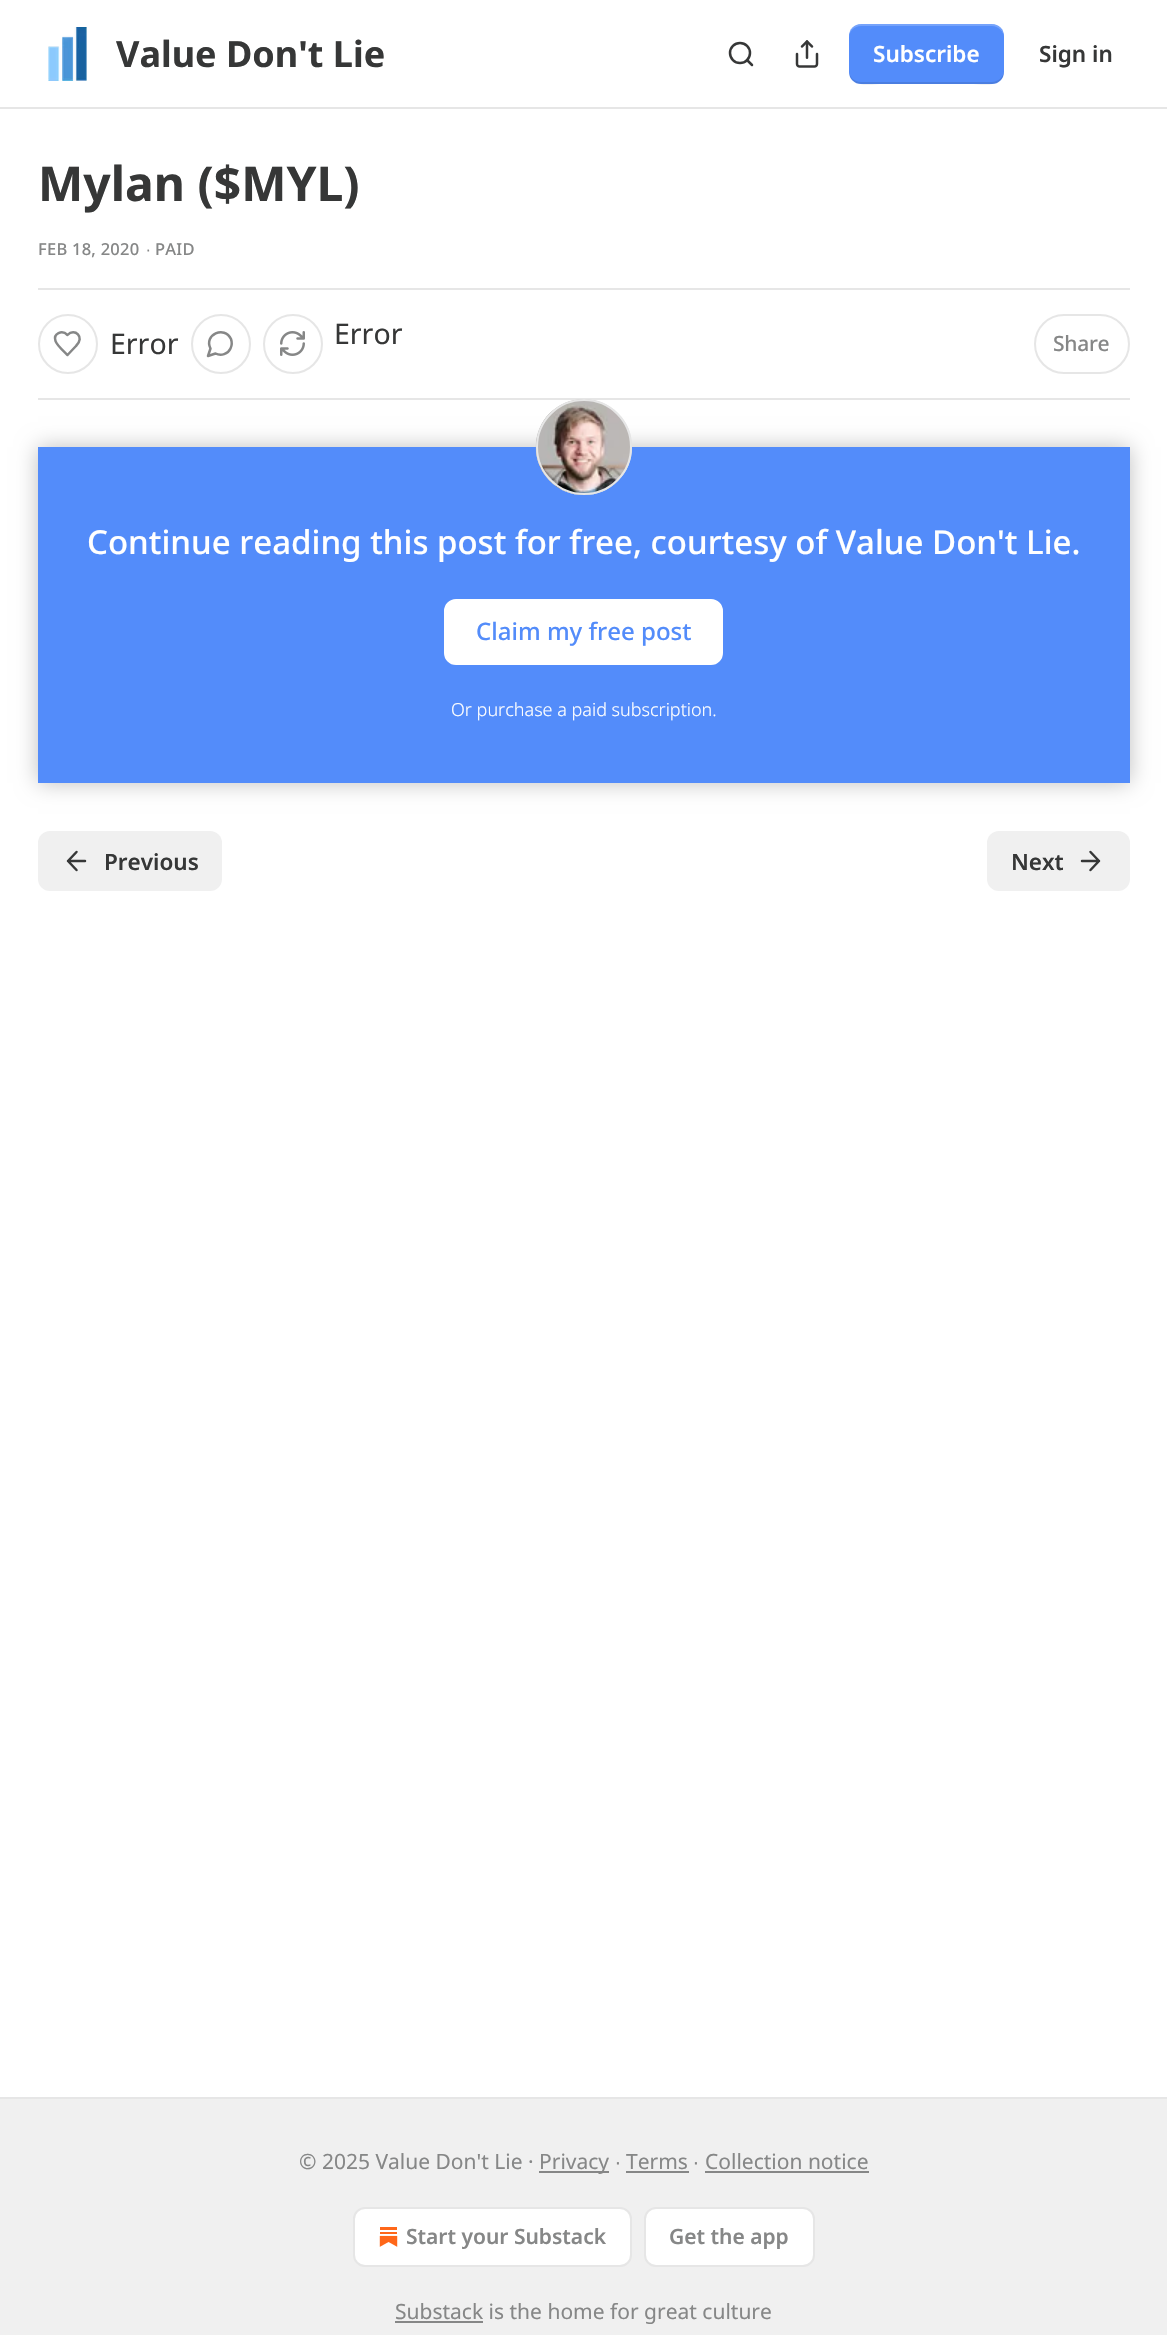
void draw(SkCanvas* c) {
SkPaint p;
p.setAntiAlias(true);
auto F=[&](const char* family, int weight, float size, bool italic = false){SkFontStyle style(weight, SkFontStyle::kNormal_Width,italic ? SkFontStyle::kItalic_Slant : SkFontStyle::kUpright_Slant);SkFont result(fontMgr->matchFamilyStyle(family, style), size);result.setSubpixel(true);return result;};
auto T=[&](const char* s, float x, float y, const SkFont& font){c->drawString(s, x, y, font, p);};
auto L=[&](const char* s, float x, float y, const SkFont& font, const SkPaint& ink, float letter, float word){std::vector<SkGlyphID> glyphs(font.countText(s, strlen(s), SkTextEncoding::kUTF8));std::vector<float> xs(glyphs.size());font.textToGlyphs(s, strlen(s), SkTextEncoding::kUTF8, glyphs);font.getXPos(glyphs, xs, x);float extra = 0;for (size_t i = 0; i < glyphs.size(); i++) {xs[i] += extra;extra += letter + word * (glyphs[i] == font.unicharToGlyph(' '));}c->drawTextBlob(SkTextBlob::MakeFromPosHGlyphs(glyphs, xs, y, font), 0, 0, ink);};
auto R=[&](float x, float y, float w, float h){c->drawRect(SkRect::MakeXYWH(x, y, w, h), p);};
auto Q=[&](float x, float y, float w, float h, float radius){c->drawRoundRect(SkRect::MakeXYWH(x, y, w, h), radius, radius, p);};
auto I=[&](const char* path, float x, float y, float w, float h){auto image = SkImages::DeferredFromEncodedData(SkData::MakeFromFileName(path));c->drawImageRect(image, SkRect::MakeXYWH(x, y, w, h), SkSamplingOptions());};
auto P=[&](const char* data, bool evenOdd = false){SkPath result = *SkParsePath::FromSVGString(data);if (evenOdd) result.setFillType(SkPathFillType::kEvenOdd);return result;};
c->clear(0xffffffff);
p.setColor(0xffe6e6e6);
R(0,107,1167,2);
I("1.png",48,27,39,54);
auto f1 = F("Noto Sans",700,36);
p.setColor(0xff363737);
T("Value Don't Lie",116,67,f1);
p.setStroke(true);
p.setStrokeWidth(2.5);
c->drawCircle(740,53,10,p);
p.setStrokeCap(SkPaint::kRound_Cap);
p.setStrokeJoin(SkPaint::kRound_Join);
c->drawPath(P("M752 65l-5-5"),p);
I("2.png",795,40,24,28);
p.setStroke(false);
p.setColor(0xff538cfa);
Q(849,24,155,60,12);
p.setColor(0x1a000000);
c->drawPath(P("M849 70c0 19 20 14 34 14h87c14 0 34 5 34-14c0 7-6 12-12 12h-131c-7 0-12-5-12-12z"),p);
p.setColor(0x33ffffff);
c->drawPath(P("M861 26h131c6 0 12 5 12 12c0-19-20-14-34-14h-87c-14 0-34-5-34 14c0-7 5-12 12-12z"),p);
auto f2 = F("Noto Sans",600,22.5);
p.setColor(0xffffffff);
T("Subscribe",873,62,f2);
p.setColor(0xff363737);
T("Sign in",1039,62,f2);
auto f3 = F("Noto Sans",700,48);
T("Mylan ($MYL)",38,201,f3);
auto f4 = F("Noto Sans",500,16.5);
p.setColor(0xff868787);
L("FEB 18, 2020",38,255,f4,p,.25,0);
auto f5 = F("Liberation Sans",400,16.5);
L("∙",146,255,f5,p,.25,0);
L("PAID",155,255,f4,p,.25,0);
p.setColor(0xffe6e6e6);
R(38,288,1092,2);
R(38,398,1092,2);
p.setStroke(true);
p.setStrokeWidth(2);
p.setStrokeCap(SkPaint::kButt_Cap);
p.setStrokeJoin(SkPaint::kMiter_Join);
c->drawCircle(68,344,29,p);
p.setStrokeWidth(2.5);
p.setStrokeCap(SkPaint::kRound_Cap);
p.setStrokeJoin(SkPaint::kRound_Join);
p.setColor(0xff868787);
c->drawPath(P("M76 346c9.5-9-1.5-18.5-8.5-11c-5.5-5.5-14.5-1.5-12 6c1 4 9 11 12 14z"),p);
auto f6 = F("Noto Sans",400,28.5);
p.setStroke(false);
p.setColor(0xff363737);
T("Error",110,354,f6);
p.setStroke(true);
p.setStrokeWidth(2);
p.setStrokeCap(SkPaint::kButt_Cap);
p.setStrokeJoin(SkPaint::kMiter_Join);
p.setColor(0xffe6e6e6);
c->drawCircle(221,344,29,p);
p.setStrokeWidth(2.5);
p.setStrokeCap(SkPaint::kRound_Cap);
p.setStrokeJoin(SkPaint::kRound_Join);
p.setColor(0xff868787);
c->drawPath(P("M215.5 353.5c5.5 3 12.5 .5 15-5c1.5-3 1.5-6.5 .5-9.5c-6.5-14-27.5-4-20.5 9.5l-2.5 7.5z"),p);
p.setStrokeWidth(2);
p.setStrokeCap(SkPaint::kButt_Cap);
p.setStrokeJoin(SkPaint::kMiter_Join);
p.setColor(0xffe6e6e6);
c->drawCircle(293,344,29,p);
I("3.png",280,331,25,25);
p.setStroke(false);
p.setColor(0xff363737);
T("Error",334,344,f6);
p.setStroke(true);
p.setColor(0xffe6e6e6);
c->drawRoundRect(SkRect::MakeXYWH(1035,315,94,58),29,29,p);
auto f7 = F("Noto Sans",500,21);
p.setStroke(false);
p.setColor(0xff868787);
L("Share",1053,351,f7,p,-.25,0);
p.setColor(0xff538cfa);
R(38,447,1092,336);
p.setColor(0xffffffff);
c->drawRoundRect(SkRect::MakeXYWH(445,600,277,64),11,11,p);
p.setStroke(true);
c->drawRoundRect(SkRect::MakeXYWH(445,600,277,64),11,11,p);
c->save();
c->clipPath(P("M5 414h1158v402h-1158zm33 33h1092v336h-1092z",true),true);
p.setStroke(false);
p.setColor(0x40000000);
p.setMaskFilter(SkMaskFilter::MakeBlur(kNormal_SkBlurStyle, 10.5));
c->drawRect(SkRect::MakeXYWH(38,447,1092,336),p);
p.setMaskFilter(nullptr);
c->restore();
p.setStroke(true);
p.setColor(0xffe6e6e6);
c->drawCircle(584,447,47,p);
I("4.png",535,399,97,96);
c->drawCircle(584,447,47,p);
auto f8 = F("Noto Sans",500,33);
p.setStroke(false);
p.setColor(0xffffffff);
T("Continue reading this post for free, courtesy of Value Don't Lie.",87,554,f8);
auto f9 = F("Noto Sans",500,24);
p.setColor(0xff538cfa);
T("Claim my free post",476,640,f9);
auto f10 = F("Noto Sans",300,18);
p.setColor(0xffffffff);
T("Or purchase a paid subscription.",451,716,f10);
p.setColor(0xfff0f0f0);
Q(38,831,184,60,12);
p.setStroke(true);
p.setStrokeWidth(2.5);
p.setStrokeCap(SkPaint::kRound_Cap);
p.setStrokeJoin(SkPaint::kRound_Join);
p.setColor(0xff363737);
c->drawPath(P("M76.5 870l-8.5-9l8.5-9m8.5 9h-17"),p);
p.setStroke(false);
T("Previous",104,870,f2);
p.setColor(0xfff0f0f0);
Q(987,831,143,60,12);
p.setColor(0xff363737);
T("Next",1011,870,f2);
p.setStroke(true);
c->drawPath(P("M1082 861h17m-8.5-9l8.5 9l-8.5 9"),p);
p.setStroke(false);
p.setColor(0xfff0f0f0);
R(0,2099,1167,236);
p.setColor(0xffe6e6e6);
R(0,2097,1167,2);
auto f11 = F("Noto Sans",400,21);
p.setColor(0xff868787);
T("© 2025 Value Don't Lie ·",299,2169,f11);
R(539,2171,70,2);
T("Privacy",539,2169,f11);
auto f12 = F("Liberation Sans",400,21);
T("∙",615,2169,f12);
T("Terms",626,2169,f11);
R(626,2171,63,2);
T("∙",693,2169,f12);
T("Collection notice",705,2169,f11);
R(705,2171,164,2);
p.setColor(0xffffffff);
c->drawRoundRect(SkRect::MakeXYWH(354,2208,277,58),11,11,p);
p.setStroke(true);
p.setStrokeWidth(2);
p.setStrokeCap(SkPaint::kButt_Cap);
p.setStrokeJoin(SkPaint::kMiter_Join);
p.setColor(0xffe6e6e6);
c->drawRoundRect(SkRect::MakeXYWH(354,2208,277,58),11,11,p);
I("5.png",379,2227,19,20);
auto f13 = F("Noto Sans",600,21);
p.setStroke(false);
p.setColor(0xff868787);
T("Start your Substack",406,2244,f13);
p.setColor(0xffffffff);
c->drawRoundRect(SkRect::MakeXYWH(645,2208,169,58),11,11,p);
p.setStroke(true);
p.setColor(0xffe6e6e6);
c->drawRoundRect(SkRect::MakeXYWH(645,2208,169,58),11,11,p);
p.setStroke(false);
p.setColor(0xff868787);
T("Get the app",669,2244,f13);
R(395,2321,88,2);
T("Substack is the home for great culture",395,2319,f11);
}
